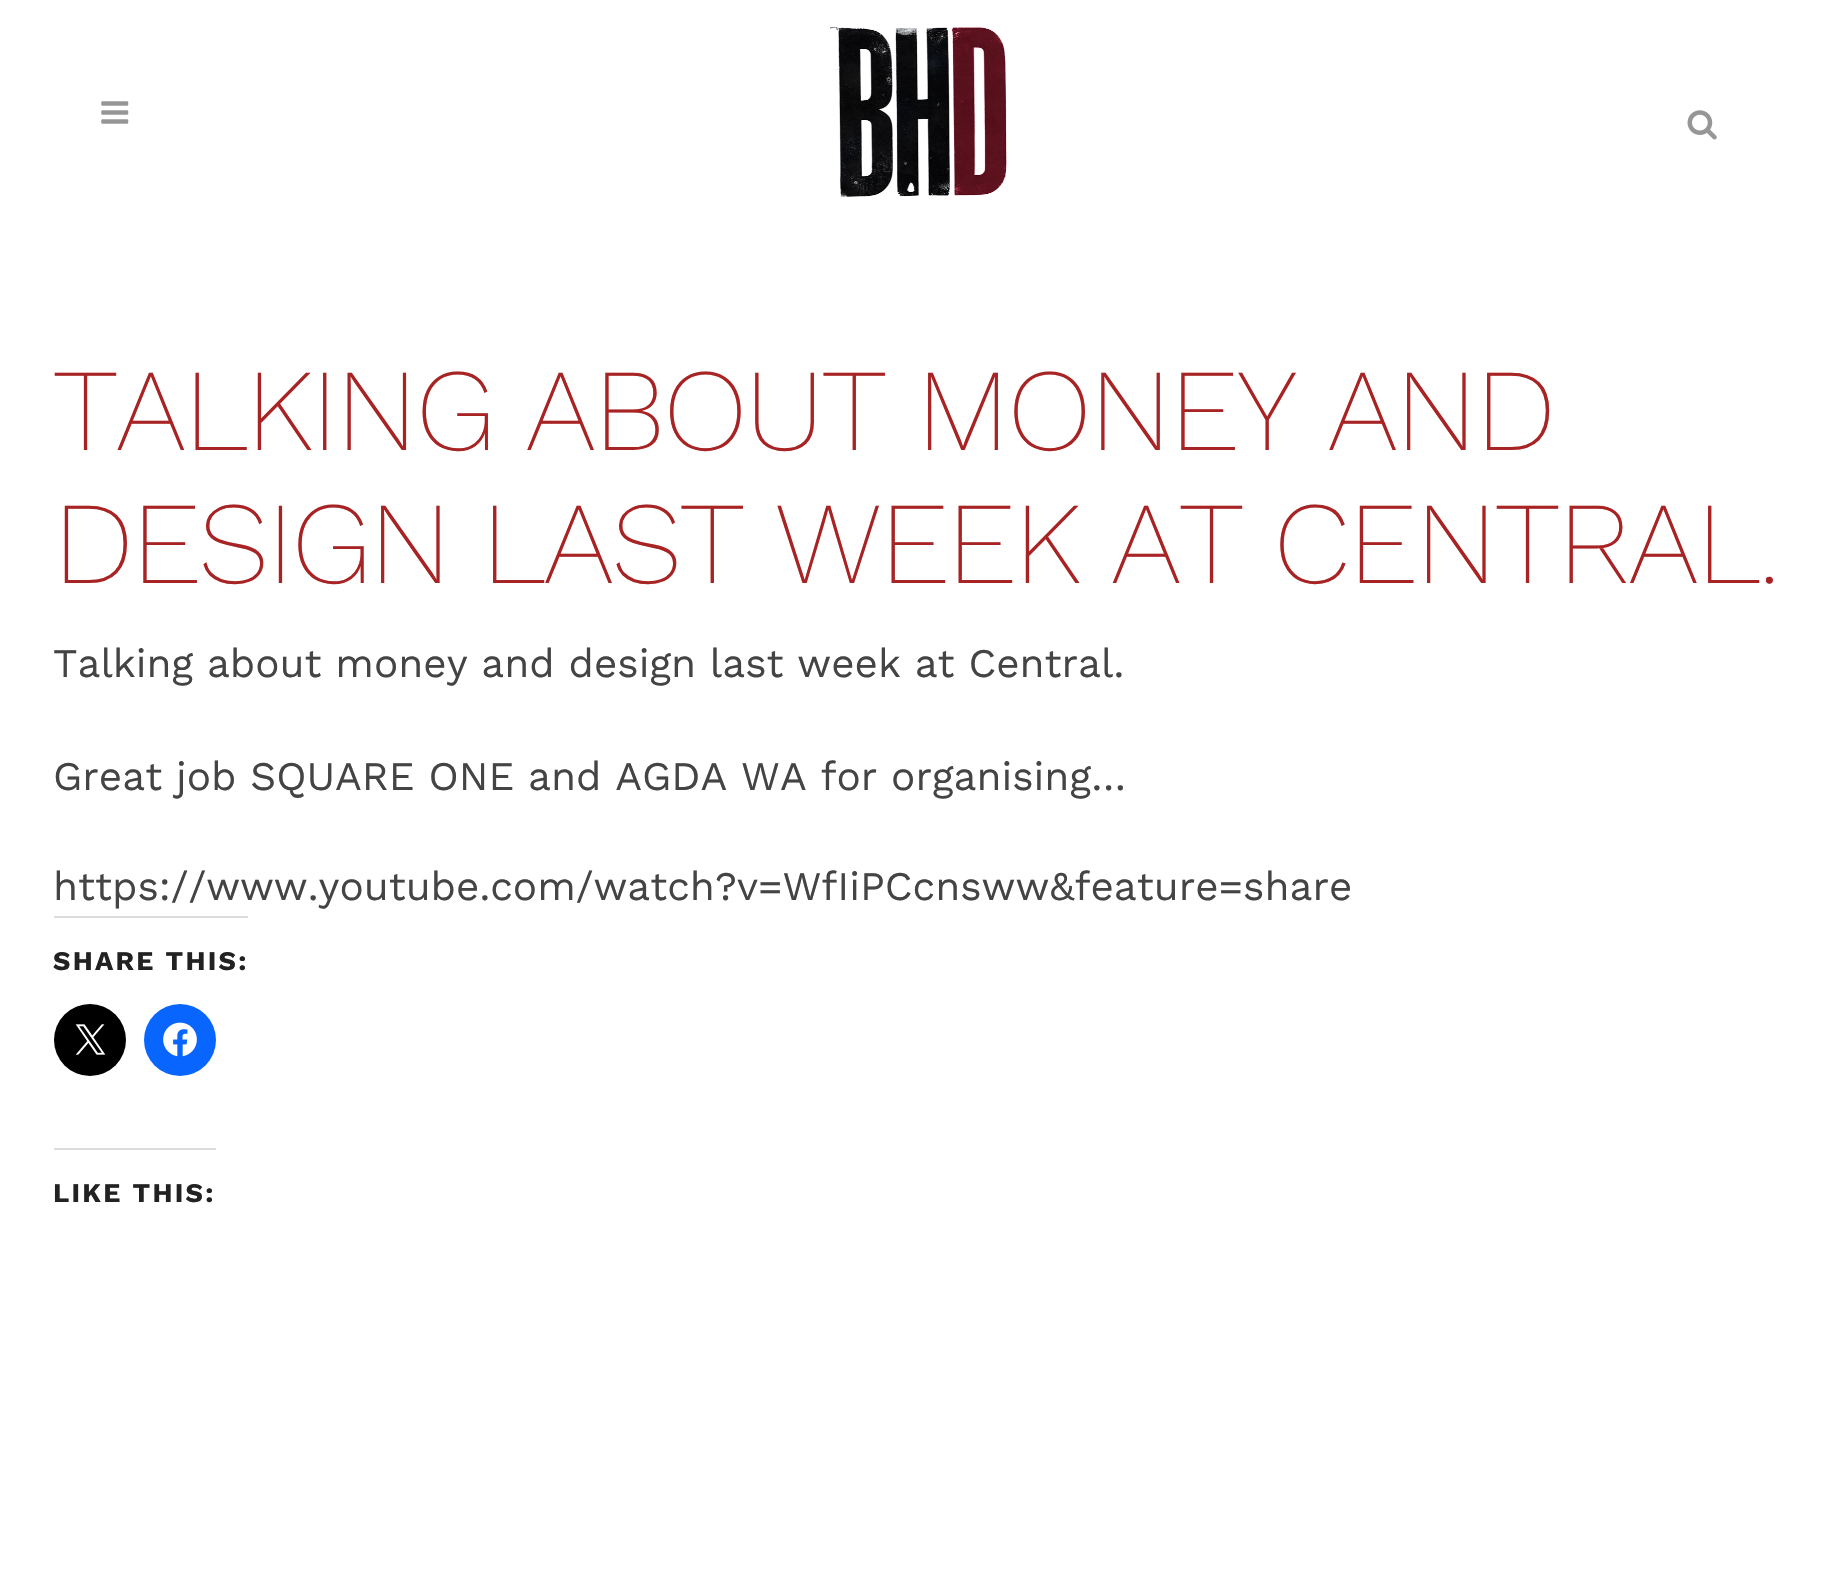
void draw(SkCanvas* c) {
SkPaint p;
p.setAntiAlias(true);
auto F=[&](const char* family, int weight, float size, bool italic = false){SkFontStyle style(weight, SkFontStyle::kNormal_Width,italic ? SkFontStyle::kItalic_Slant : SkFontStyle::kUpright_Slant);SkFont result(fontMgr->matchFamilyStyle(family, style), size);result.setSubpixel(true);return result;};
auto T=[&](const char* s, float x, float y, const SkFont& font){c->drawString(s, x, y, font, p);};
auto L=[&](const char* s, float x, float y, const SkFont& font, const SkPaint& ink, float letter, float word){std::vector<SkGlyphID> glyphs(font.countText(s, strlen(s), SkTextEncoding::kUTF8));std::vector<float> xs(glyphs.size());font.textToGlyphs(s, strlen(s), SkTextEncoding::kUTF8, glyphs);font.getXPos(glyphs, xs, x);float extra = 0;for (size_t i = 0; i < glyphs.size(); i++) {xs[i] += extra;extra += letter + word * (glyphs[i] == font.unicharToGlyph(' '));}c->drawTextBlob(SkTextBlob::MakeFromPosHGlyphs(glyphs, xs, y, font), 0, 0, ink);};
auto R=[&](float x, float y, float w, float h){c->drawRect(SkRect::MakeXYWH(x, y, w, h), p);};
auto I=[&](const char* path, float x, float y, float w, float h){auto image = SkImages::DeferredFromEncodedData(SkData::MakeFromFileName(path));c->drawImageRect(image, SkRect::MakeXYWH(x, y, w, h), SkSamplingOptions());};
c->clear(0xffffffff);
I("1.png",101,101,28,23);
I("2.png",830,26,177,171);
I("3.png",1687,110,30,30);
auto f1 = F("Work Sans",200,117);
p.setColor(0xffa82323);
L("TALKING ABOUT MONEY AND",53,450,f1,p,-2.25,0);
L("DESIGN LAST WEEK AT CENTRAL.",53,583,f1,p,-2.25,0);
auto f2 = F("Work Sans",400,40.5);
p.setColor(0xff444444);
T("Talking about money and design last week at Central.",53,677,f2);
T("Great job SQUARE ONE and AGDA WA for organising…",53,790,f2);
T("https://www.youtube.com/watch?v=WfIiPCcnsww&feature=share",53,900,f2);
p.setColor(0xffdcdcde);
R(54,916,194,2);
auto f3 = F("Work Sans",700,27);
p.setColor(0xff222222);
L("SHARE THIS:",53,970,f3,p,2.25,0);
p.setColor(0xff000000);
c->drawCircle(90,1040,36,p);
I("4.png",75,1024,31,31);
p.setColor(0xff0866ff);
c->drawCircle(180,1040,36,p);
I("5.png",163,1022,34,35);
p.setColor(0xffdcdcde);
R(54,1148,162,2);
p.setColor(0xff222222);
L("LIKE THIS:",53,1202,f3,p,2.25,0);
}
